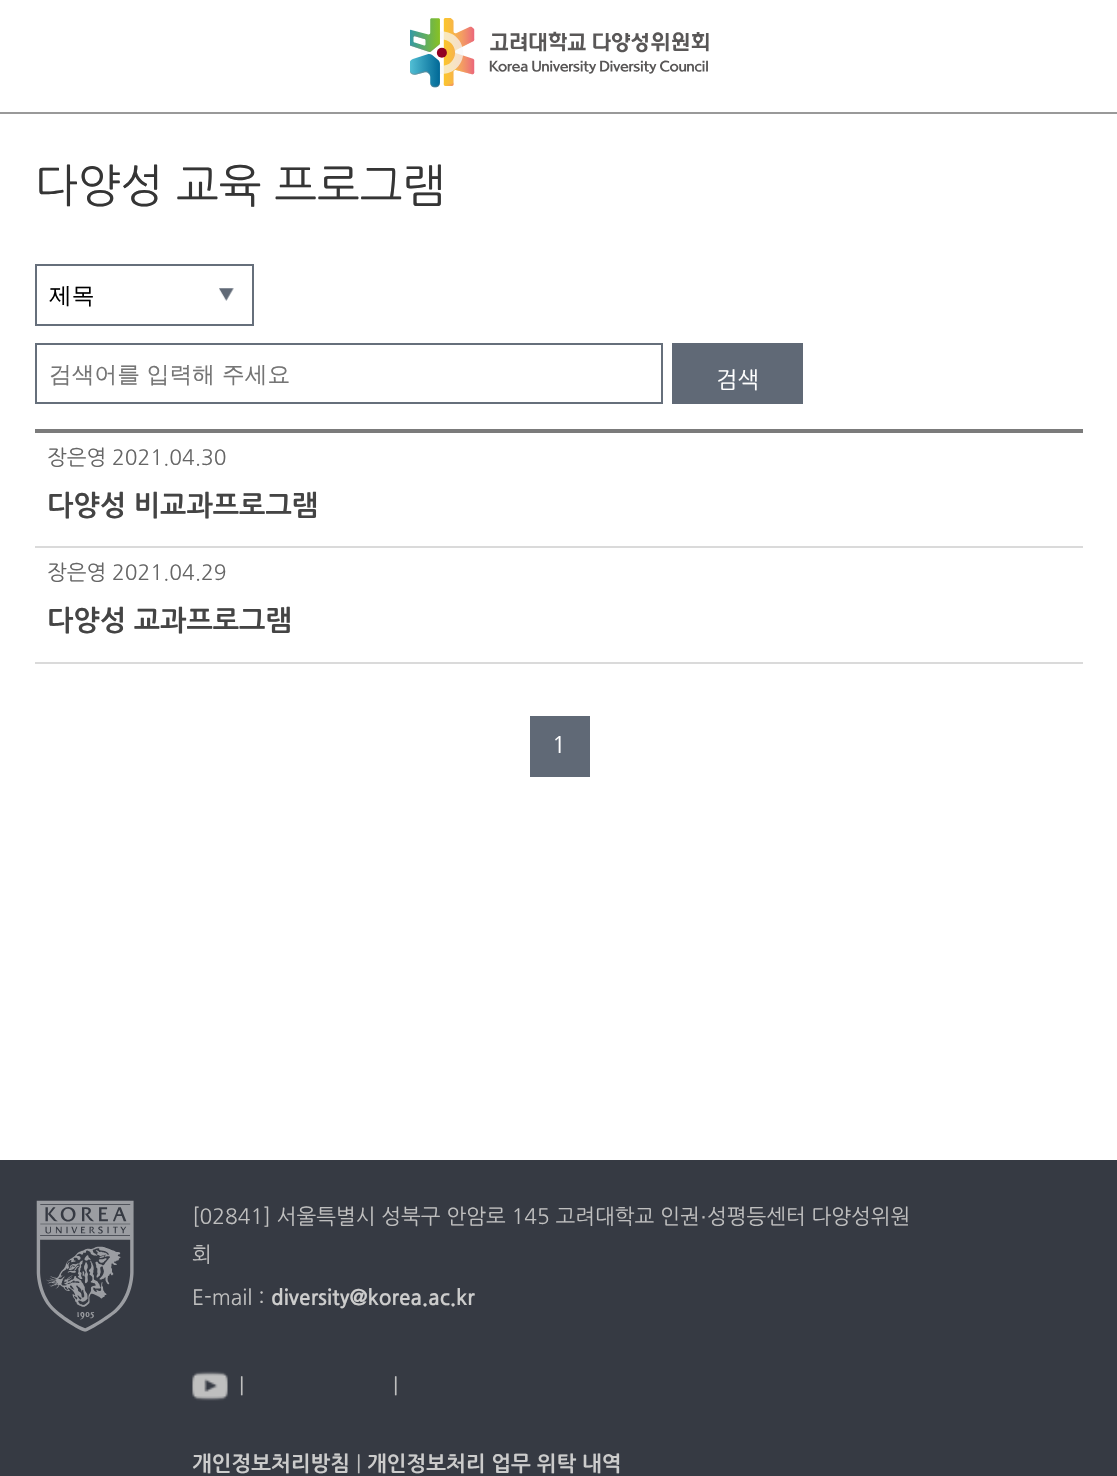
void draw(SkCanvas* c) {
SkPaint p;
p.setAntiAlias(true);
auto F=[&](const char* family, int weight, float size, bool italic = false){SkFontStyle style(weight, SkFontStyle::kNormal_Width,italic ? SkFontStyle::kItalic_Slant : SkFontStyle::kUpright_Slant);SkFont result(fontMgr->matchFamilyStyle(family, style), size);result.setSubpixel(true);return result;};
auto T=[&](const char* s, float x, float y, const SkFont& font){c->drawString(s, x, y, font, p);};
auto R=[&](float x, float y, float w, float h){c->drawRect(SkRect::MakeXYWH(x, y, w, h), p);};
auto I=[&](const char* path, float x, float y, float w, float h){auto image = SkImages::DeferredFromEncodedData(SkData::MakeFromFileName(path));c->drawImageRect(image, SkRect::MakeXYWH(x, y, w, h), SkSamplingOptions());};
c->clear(0xffffffff);
p.setColor(0xff999999);
R(0,112,1117,2);
I("1.png",410,18,299,70);
auto f1 = F("NanumGothic",400,45.5);
p.setColor(0xff353535);
T("다양성 교육 프로그램",35,200,f1);
I("2.png",219,288,15,13);
p.setStroke(true);
p.setStrokeWidth(2);
p.setColor(0xff666f7b);
c->drawRect(SkRect::MakeXYWH(36,265,217,60),p);
auto f2 = F("WenQuanYi Zen Hei",500,22.75);
p.setStroke(false);
p.setColor(0xff000000);
T("제목",49,303,f2);
p.setStroke(true);
p.setColor(0xff666f7b);
c->drawRect(SkRect::MakeXYWH(36,344,626,59),p);
p.setStroke(false);
p.setColor(0xff757575);
T("검색어를 입력해 주세요",49,382,f2);
p.setColor(0xff606976);
R(672,343,131,61);
auto f3 = F("NanumGothic",400,22.75);
p.setColor(0xffffffff);
T("검색",716,387,f3);
p.setColor(0xff7b7b7b);
R(35,429,1048,4);
p.setColor(0xffdadada);
R(35,546,1048,2);
auto f4 = F("NanumGothic",400,21);
p.setColor(0xff666666);
T("장은영",47,464,f4);
T("2021.04.30",112,464,f4);
auto f5 = F("NanumGothic",600,28);
p.setColor(0xff444444);
T("다양성 비교과프로그램",47,514,f5);
p.setColor(0xffdadada);
R(35,662,1048,2);
p.setColor(0xff666666);
T("장은영",47,579,f4);
T("2021.04.29",112,579,f4);
p.setColor(0xff444444);
T("다양성 교과프로그램",47,629,f5);
p.setColor(0xff606976);
R(530,716,60,61);
p.setColor(0xffffffff);
T("1",552,752,f3);
p.setColor(0xff363a43);
R(0,1160,1117,316);
I("3.png",36,1200,98,132);
p.setColor(0xffbfbfbf);
T("[02841] 서울특별시 성북구 안암로 145 고려대학교 인권",192,1223,f4);
auto f6 = F("Liberation Sans",400,21);
T("·",700,1223,f6);
T("성평등센터 다양성위원",707,1223,f4);
T("회",192,1261,f4);
T("E-mail :",192,1304,f4);
auto f7 = F("NanumGothic",600,21);
p.setColor(0xffcccccc);
T("diversity@korea.ac.kr",271,1304,f7);
I("4.png",192,1371,36,30);
p.setColor(0xffbfbfbf);
T("|",239,1392,f4);
T("|",393,1392,f4);
p.setColor(0xffcccccc);
T("개인정보처리방침",192,1470,f7);
p.setColor(0xffbfbfbf);
T("|",356,1470,f4);
p.setColor(0xffcccccc);
T("개인정보처리 업무 위탁 내역",367,1470,f7);
}
